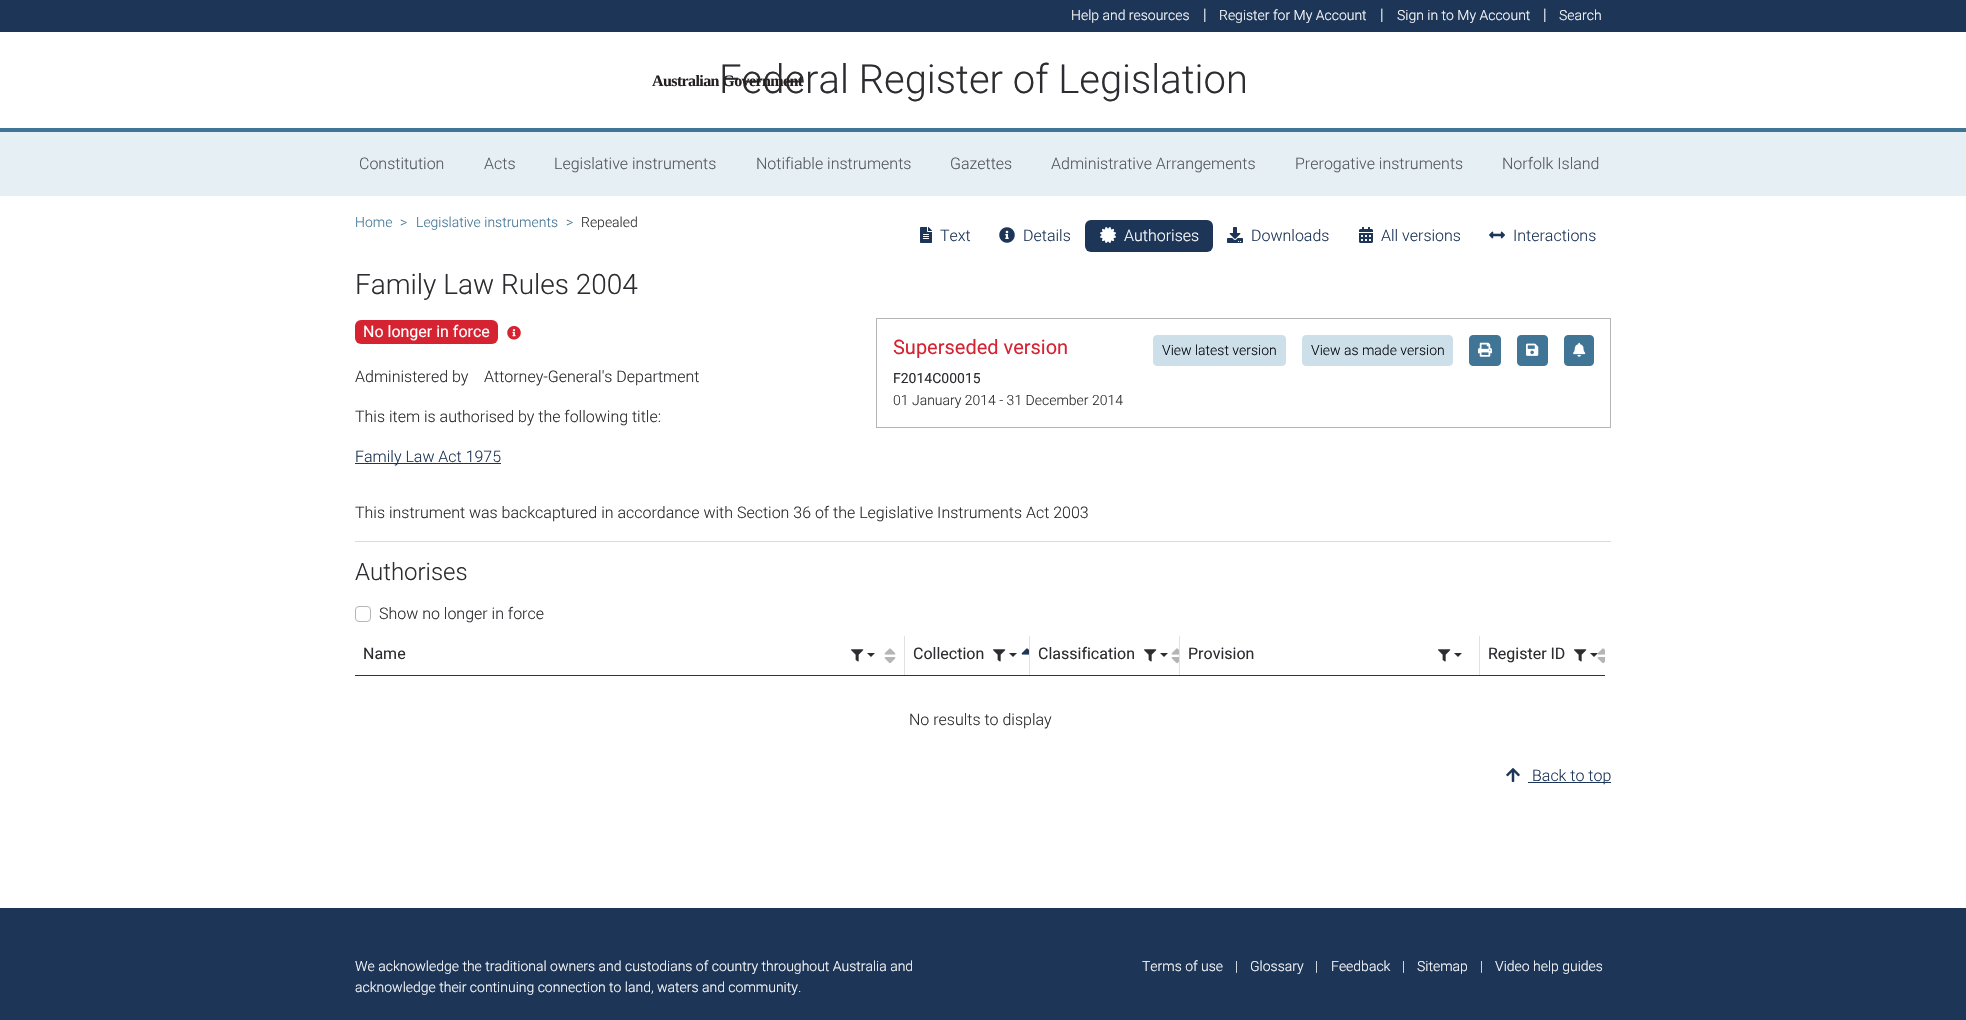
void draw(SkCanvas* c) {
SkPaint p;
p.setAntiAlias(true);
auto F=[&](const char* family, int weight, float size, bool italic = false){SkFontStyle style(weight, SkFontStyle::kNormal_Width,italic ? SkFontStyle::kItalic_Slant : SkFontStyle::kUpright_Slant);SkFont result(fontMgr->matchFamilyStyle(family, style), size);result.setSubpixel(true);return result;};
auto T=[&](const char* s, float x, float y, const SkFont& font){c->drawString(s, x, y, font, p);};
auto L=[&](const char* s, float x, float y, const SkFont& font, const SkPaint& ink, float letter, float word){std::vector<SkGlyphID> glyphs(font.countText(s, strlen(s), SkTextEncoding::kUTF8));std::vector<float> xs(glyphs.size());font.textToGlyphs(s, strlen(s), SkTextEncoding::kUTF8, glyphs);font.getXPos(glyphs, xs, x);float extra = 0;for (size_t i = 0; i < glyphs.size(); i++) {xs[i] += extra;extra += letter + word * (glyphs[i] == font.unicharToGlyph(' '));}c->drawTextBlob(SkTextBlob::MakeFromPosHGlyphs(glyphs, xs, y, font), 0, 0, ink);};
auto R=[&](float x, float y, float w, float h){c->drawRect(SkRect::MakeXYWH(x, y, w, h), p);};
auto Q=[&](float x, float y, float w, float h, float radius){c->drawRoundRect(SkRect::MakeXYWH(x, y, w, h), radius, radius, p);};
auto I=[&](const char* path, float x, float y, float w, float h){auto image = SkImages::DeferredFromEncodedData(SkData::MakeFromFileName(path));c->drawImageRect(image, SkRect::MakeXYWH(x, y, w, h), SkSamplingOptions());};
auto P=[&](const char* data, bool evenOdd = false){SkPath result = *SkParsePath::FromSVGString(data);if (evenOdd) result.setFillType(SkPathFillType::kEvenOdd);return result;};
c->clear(0xffffffff);
p.setColor(0xff417595);
R(0,128,1966,4);
p.setColor(0xff1d3557);
R(0,0,1966,32);
auto f1 = F("Roboto",300,14);
p.setColor(0xffffffff);
T("Help and resources",1071,20,f1);
auto f2 = F("Roboto",300,16);
T("|",1203,20,f2);
T("Register for My Account",1219,20,f1);
T("|",1380,20,f2);
T("Sign in to My Account",1397,20,f1);
T("|",1543,20,f2);
T("Search",1559,20,f1);
auto f3 = F("Roboto",300,40);
p.setColor(0xff2d2d31);
T("Federal Register of Legislation",719,93,f3);
auto f4 = F("Liberation Serif",700,16);
p.setColor(0xff23201f);
L("Australian Government",652,86,f4,p,-.6,0);
p.setColor(0xffe6eff4);
R(0,132,1966,64);
p.setColor(0xff56595e);
T("Constitution",359,169,f2);
T("Acts",484,169,f2);
T("Legislative instruments",554,169,f2);
T("Notifiable instruments",756,169,f2);
T("Gazettes",950,169,f2);
T("Administrative Arrangements",1051,169,f2);
T("Prerogative instruments",1295,169,f2);
T("Norfolk Island",1502,169,f2);
p.setColor(0xff417595);
T("Home",355,227,f1);
T(">",400,227,f1);
T("Legislative instruments",416,227,f1);
T(">",566,227,f1);
p.setColor(0xff2d2d31);
T("Repealed",581,227,f1);
I("1.png",920,227,12,16);
p.setColor(0xff1d3557);
T("Text",940,241,f2);
I("2.png",999,227,16,16);
T("Details",1023,241,f2);
Q(1085,220,128,32,6);
I("3.png",1100,227,16,16);
p.setColor(0xffffffff);
T("Authorises",1124,241,f2);
I("4.png",1227,227,16,16);
p.setColor(0xff1d3557);
T("Downloads",1251,241,f2);
I("5.png",1359,227,14,16);
T("All versions",1381,241,f2);
I("6.png",1489,231,16,8);
T("Interactions",1513,241,f2);
auto f5 = F("Roboto",300,28);
p.setColor(0xff2d2d31);
T("Family Law Rules 2004",355,294,f5);
p.setColor(0xffd62332);
Q(355,320,143,24,6);
auto f6 = F("Roboto",400,16);
p.setColor(0xffffffff);
T("No longer in force",363,337,f6);
I("7.png",507,326,14,14);
p.setColor(0xff2d2d31);
T("Administered by",355,382,f2);
T("Attorney-General's Department",484,382,f2);
T("This item is authorised by the following title:",355,422,f2);
p.setColor(0xff1d3557);
R(355,463,146,1);
T("Family Law Act 1975",355,462,f2);
p.setStroke(true);
p.setStrokeWidth(1);
p.setColor(0xffb5b5b6);
c->drawRect(SkRect::MakeXYWH(876.5,318.5,734,109),p);
auto f7 = F("Roboto",400,20);
p.setStroke(false);
p.setColor(0xffd62332);
T("Superseded version",893,354,f7);
p.setColor(0xffcddfe9);
c->drawRoundRect(SkRect::MakeXYWH(1153.5,335.5,132,30),3.5,3.5,p);
p.setStroke(true);
c->drawRoundRect(SkRect::MakeXYWH(1153.5,335.5,132,30),3.5,3.5,p);
p.setStroke(false);
p.setColor(0xff08080d);
T("View latest version",1162,355,f1);
p.setColor(0xffcddfe9);
c->drawRoundRect(SkRect::MakeXYWH(1302.5,335.5,150,30),3.5,3.5,p);
p.setStroke(true);
c->drawRoundRect(SkRect::MakeXYWH(1302.5,335.5,150,30),3.5,3.5,p);
p.setStroke(false);
p.setColor(0xff08080d);
T("View as made version",1311,355,f1);
p.setColor(0xff417595);
c->drawRoundRect(SkRect::MakeXYWH(1469.5,335.5,31,30),3.5,3.5,p);
p.setStroke(true);
c->drawRoundRect(SkRect::MakeXYWH(1469.5,335.5,31,30),3.5,3.5,p);
I("8.png",1478,342,14,15);
p.setStroke(false);
c->drawRoundRect(SkRect::MakeXYWH(1517.5,335.5,30,30),3.5,3.5,p);
p.setStroke(true);
c->drawRoundRect(SkRect::MakeXYWH(1517.5,335.5,30,30),3.5,3.5,p);
I("9.png",1526,343,13,13);
p.setStroke(false);
c->drawRoundRect(SkRect::MakeXYWH(1564.5,335.5,29,30),3.5,3.5,p);
p.setStroke(true);
c->drawRoundRect(SkRect::MakeXYWH(1564.5,335.5,29,30),3.5,3.5,p);
I("10.png",1573,342,13,15);
auto f8 = F("Roboto",400,14);
p.setStroke(false);
p.setColor(0xff2d2d31);
T("F2014C00015",893,383,f8);
T("01 January 2014 - 31 December 2014",893,405,f1);
T("This instrument was backcaptured in accordance with Section 36 of the Legislative Instruments Act 2003",355,518,f2);
p.setColor(0xffd0dde5);
R(355,541,1256,1);
auto f9 = F("Roboto",300,24);
p.setColor(0xff2d2d31);
T("Authorises",355,580,f9);
p.setStroke(true);
p.setColor(0xffb5b5b6);
c->drawRoundRect(SkRect::MakeXYWH(355.5,606.5,15,15),3.5,3.5,p);
p.setStroke(false);
p.setColor(0xff2d2d31);
T("Show no longer in force",379,619,f2);
p.setColor(0xffe1e1e2);
R(904,636,1,40);
p.setColor(0xff1d3557);
R(355,675,550,1);
p.setColor(0xff2d2d31);
T("Name",363,659,f6);
I("11.png",851,649,13,13);
c->drawPath(P("M867 653h8l-4 4z"),p);
I("12.png",884,648,12,16);
p.setColor(0xffe1e1e2);
R(1029,636,1,40);
p.setColor(0xff1d3557);
R(905,675,125,1);
p.setColor(0xff2d2d31);
T("Collection",913,659,f6);
I("11.png",993,649,13,13);
c->drawPath(P("M1009 653h8l-4 4z"),p);
I("13.png",1021,648,8,7);
p.setColor(0xffe1e1e2);
R(1179,636,1,40);
p.setColor(0xff1d3557);
R(1030,675,150,1);
p.setColor(0xff2d2d31);
T("Classification",1038,659,f6);
I("11.png",1144,649,13,13);
c->drawPath(P("M1160 653h8l-4 4z"),p);
I("14.png",1171,648,8,16);
p.setColor(0xffe1e1e2);
R(1479,636,1,40);
p.setColor(0xff1d3557);
R(1180,675,425,1);
p.setColor(0xff2d2d31);
T("Provision",1188,659,f6);
I("11.png",1438,649,13,13);
c->drawPath(P("M1454 653h8l-4 4z"),p);
T("Register ID",1488,659,f6);
I("11.png",1574,649,13,13);
c->drawPath(P("M1590 653h8l-4 4z"),p);
I("15.png",1597,648,8,16);
T("No results to display",909,725,f2);
I("16.png",1506,768,14,14);
p.setColor(0xff1d3557);
R(1528,782,83,1);
T("Back to top",1532,781,f2);
R(0,908,1966,112);
p.setColor(0xffffffff);
T("We acknowledge the traditional owners and custodians of country throughout Australia and",355,971,f1);
T("acknowledge their continuing connection to land, waters and community.",355,992,f1);
T("Terms of use",1142,971,f1);
T("|",1235,971,f1);
T("Glossary",1250,971,f1);
T("|",1315,971,f1);
T("Feedback",1331,971,f1);
T("|",1402,971,f1);
T("Sitemap",1417,971,f1);
T("|",1480,971,f1);
T("Video help guides",1495,971,f1);
}
